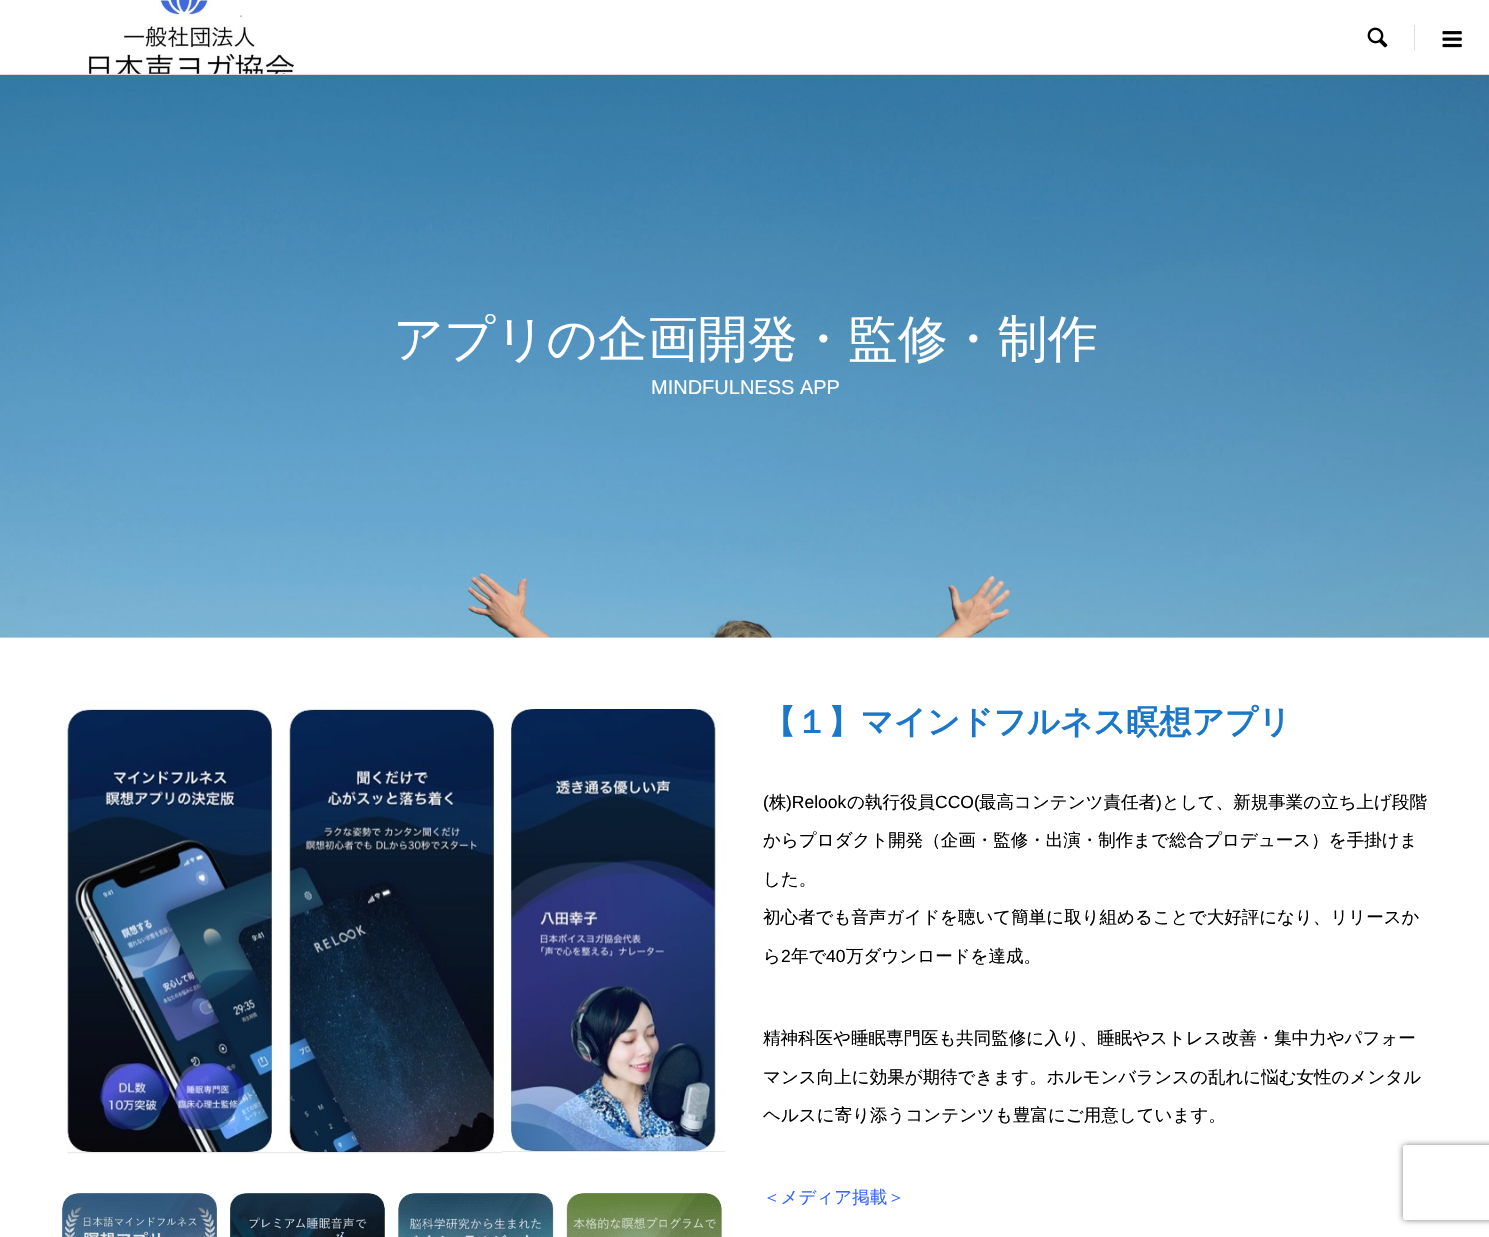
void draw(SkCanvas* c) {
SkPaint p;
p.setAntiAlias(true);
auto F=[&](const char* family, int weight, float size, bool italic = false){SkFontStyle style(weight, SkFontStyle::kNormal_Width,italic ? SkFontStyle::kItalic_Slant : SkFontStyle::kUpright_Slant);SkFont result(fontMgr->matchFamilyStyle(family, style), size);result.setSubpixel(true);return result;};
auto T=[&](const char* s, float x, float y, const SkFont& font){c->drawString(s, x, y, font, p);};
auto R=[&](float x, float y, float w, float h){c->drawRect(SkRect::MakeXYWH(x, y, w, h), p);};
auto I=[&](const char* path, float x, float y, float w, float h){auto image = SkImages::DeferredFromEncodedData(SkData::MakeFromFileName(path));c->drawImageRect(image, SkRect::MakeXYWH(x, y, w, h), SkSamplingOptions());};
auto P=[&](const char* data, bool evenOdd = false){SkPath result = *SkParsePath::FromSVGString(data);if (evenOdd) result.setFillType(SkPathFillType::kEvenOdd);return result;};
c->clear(0xffffffff);
p.setColor(0xffe6e6e6);
R(0,637,1489,1);
p.setColor(0xffdddddd);
R(0,74,1489,1);
I("1.png",88,0,207,74);
I("2.png",1367,27,21,21);
R(1414,25,1,25);
I("3.png",1442,31,20,17);
I("4.png",0,75,1489,563);
auto f1 = F("WenQuanYi Zen Hei",500,50);
p.setColor(0xffffffff);
T("アプリの企画開発・監修・制作",393,356,f1);
auto f2 = F("Liberation Sans",400,20);
T("MINDFULNESS APP",651,394,f2);
I("5.png",66,700,659,454);
I("6.png",62,1193,660,44);
auto f3 = F("WenQuanYi Zen Hei",700,32.5);
p.setColor(0xff1a77c9);
T("【１】マインドフルネス瞑想アプリ",763,733,f3);
auto f4 = F("Liberation Sans",400,17.5);
p.setColor(0xff000000);
T("(",763,808,f4);
auto f5 = F("WenQuanYi Zen Hei",500,17.5);
T("株",769,808,f5);
T(")Relook",786,808,f4);
T("の執行役員",847,808,f5);
T("CCO(",935,808,f4);
T("最高コンテンツ責任者",979,808,f5);
T(")",1156,808,f4);
T("として、新規事業の立ち上げ段階",1162,808,f5);
T("からプロダクト開発（企画・監修・出演・制作まで総合プロデュース）を手掛けま",763,846,f5);
T("した。",763,885,f5);
T("初心者でも音声ガイドを聴いて簡単に取り組めることで大好評になり、リリースか",763,923,f5);
T("ら",763,962,f5);
T("2",781,962,f4);
T("年で",791,962,f5);
T("40",826,962,f4);
T("万ダウンロードを達成。",846,962,f5);
T("精神科医や睡眠専門医も共同監修に入り、睡眠やストレス改善・集中力やパフォー",763,1044,f5);
T("マンス向上に効果が期待できます。ホルモンバランスの乱れに悩む女性のメンタル",763,1083,f5);
T("ヘルスに寄り添うコンテンツも豊富にご用意しています。",763,1121,f5);
p.setColor(0xff3366ff);
T("＜メディア掲載＞",763,1203,f5);
c->save();
c->clipPath(P("M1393 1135h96v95h-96zm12.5 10h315c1.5 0 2.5 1 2.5 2.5v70c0 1.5-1 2.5-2.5 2.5h-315c-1.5 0-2.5-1-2.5-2.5v-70c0-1.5 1-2.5 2.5-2.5z",true),true);
p.setColor(0xff808080);
p.setMaskFilter(SkMaskFilter::MakeBlur(kNormal_SkBlurStyle, 3));
c->drawRoundRect(SkRect::MakeXYWH(1403,1145,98,75),2.5,2.5,p);
p.setMaskFilter(nullptr);
c->restore();
}
